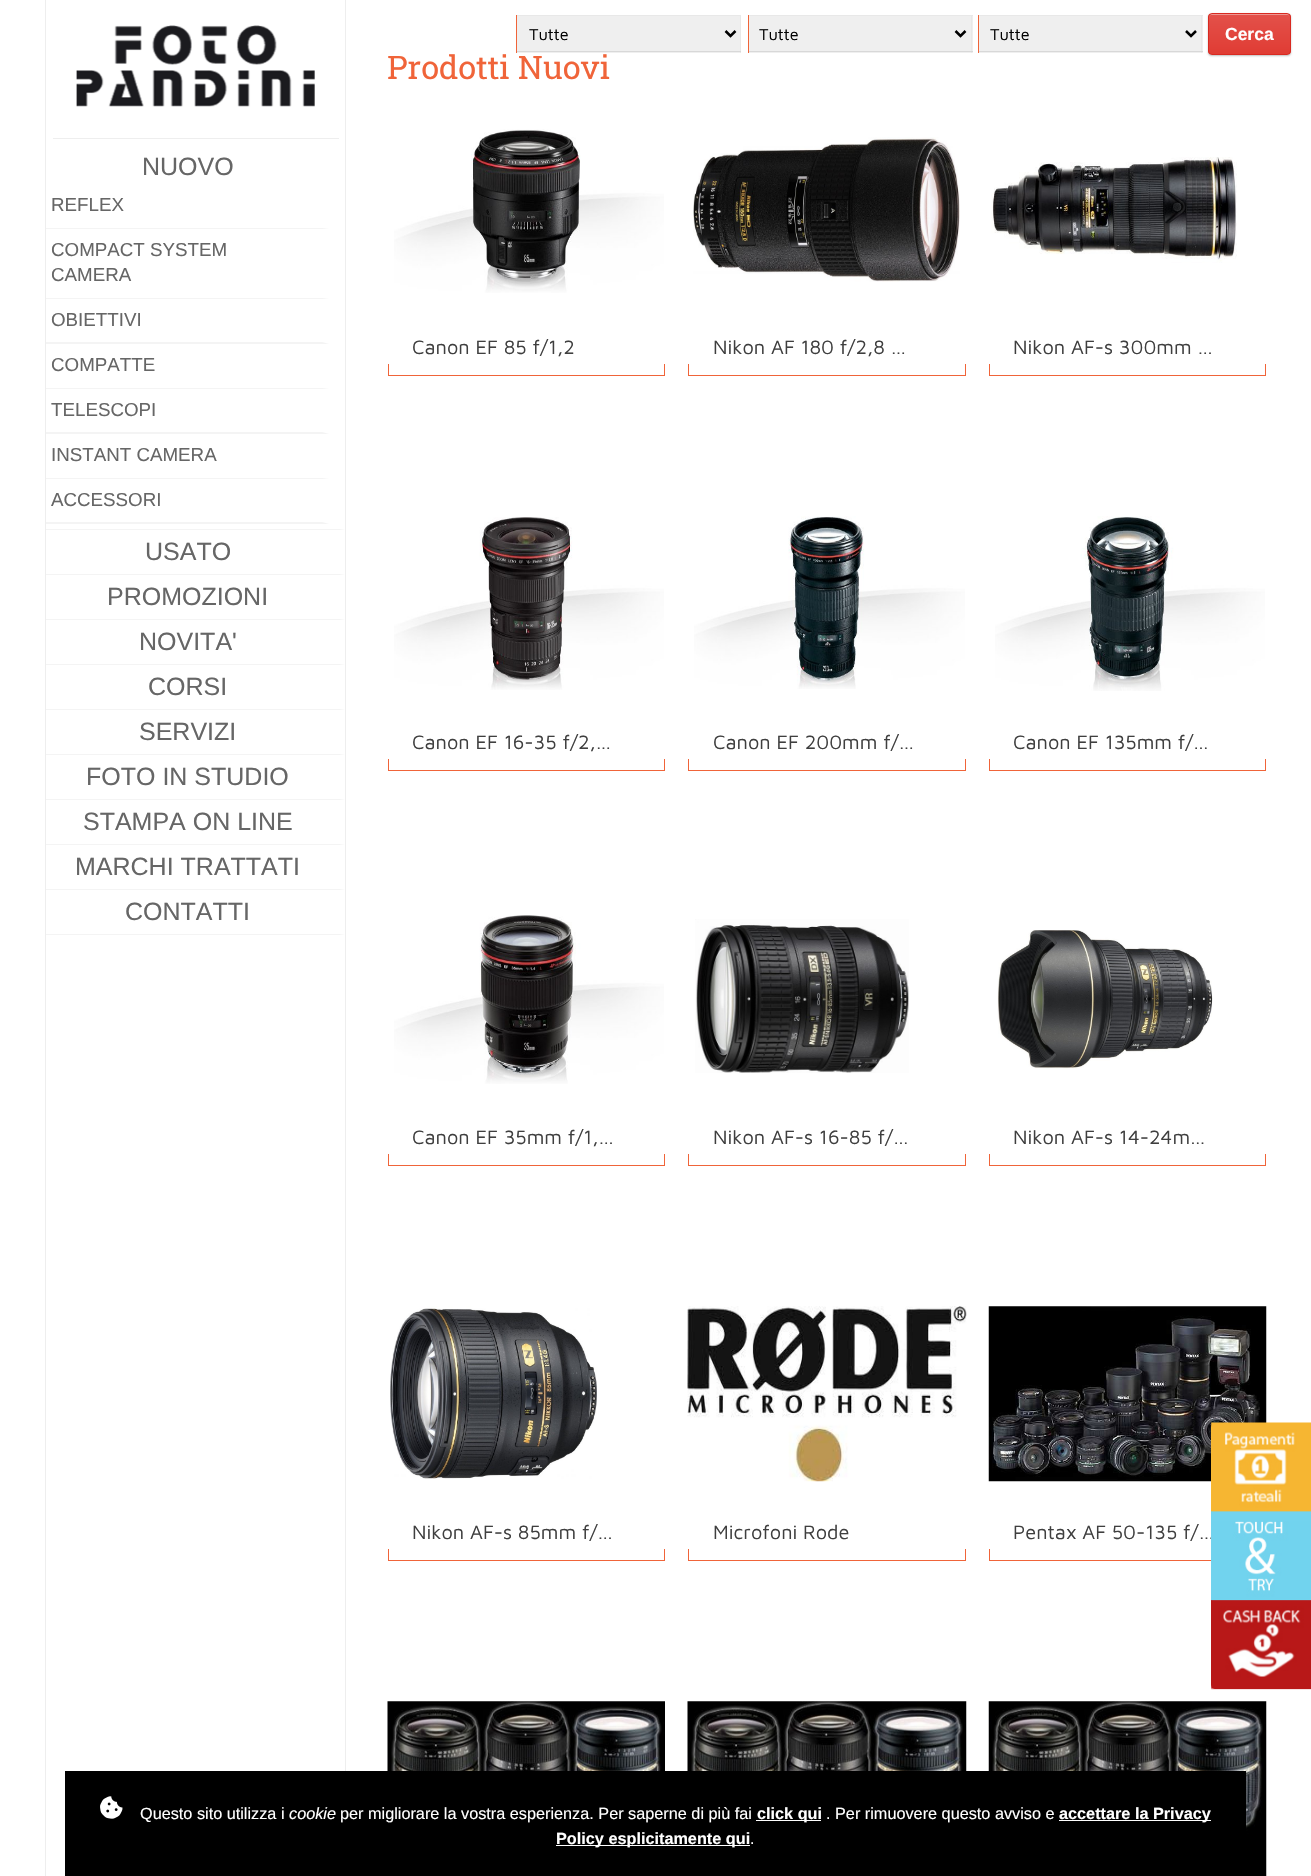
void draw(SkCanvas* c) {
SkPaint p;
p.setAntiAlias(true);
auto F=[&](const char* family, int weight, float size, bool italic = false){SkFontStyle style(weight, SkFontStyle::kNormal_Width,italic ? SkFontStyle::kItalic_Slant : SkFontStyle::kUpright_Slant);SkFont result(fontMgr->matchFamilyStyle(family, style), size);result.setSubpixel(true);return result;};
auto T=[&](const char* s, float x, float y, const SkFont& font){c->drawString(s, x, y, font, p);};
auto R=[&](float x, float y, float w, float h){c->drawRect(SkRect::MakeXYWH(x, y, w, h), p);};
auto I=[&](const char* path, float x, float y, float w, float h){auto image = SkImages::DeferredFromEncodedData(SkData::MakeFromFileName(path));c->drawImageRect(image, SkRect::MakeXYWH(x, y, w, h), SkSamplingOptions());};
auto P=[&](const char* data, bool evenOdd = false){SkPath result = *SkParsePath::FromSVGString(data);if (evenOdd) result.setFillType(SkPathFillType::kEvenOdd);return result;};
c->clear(0xffffffff);
p.setColor(0xffeeeeee);
R(345,0,1,1771);
R(45,0,1,1876);
R(53,138,286,1);
I("1.png",76,25,239,82);
p.setColor(0xffefefef);
R(517,16,223,37);
p.setColor(0xffe8e8e8);
R(516,15,225,1);
R(740,15,1,38);
p.setColor(0xffd8d8d8);
R(516,51,225,1);
p.setColor(0xfff06439);
R(516,15,1,38);
p.setStroke(true);
p.setStrokeWidth(2.5);
p.setColor(0xff000000);
c->drawPath(P("M725.5 31l5 5l5-5"),p);
auto f1 = F("Maven Pro",400,16.25);
p.setStroke(false);
T("Tutte",529,40,f1);
p.setColor(0xffefefef);
R(749,16,224,37);
p.setColor(0xffe8e8e8);
R(748,15,225,1);
R(971,15,1,38);
p.setColor(0xffd8d8d8);
R(748,51,225,1);
p.setColor(0xfff06439);
R(748,15,1,38);
p.setStroke(true);
p.setColor(0xff000000);
c->drawPath(P("M955.5 31l5 5l5-5"),p);
p.setStroke(false);
T("Tutte",759,40,f1);
p.setColor(0xffefefef);
R(979,16,224,37);
p.setColor(0xffe8e8e8);
R(978,15,225,1);
R(1201,15,1,38);
p.setColor(0xffd8d8d8);
R(978,51,225,1);
p.setColor(0xfff06439);
R(978,15,1,38);
p.setStroke(true);
p.setColor(0xff000000);
c->drawPath(P("M1186 31l5 5l5-5"),p);
p.setStroke(false);
T("Tutte",990,40,f1);
p.setColor(0x40000000);
p.setMaskFilter(SkMaskFilter::MakeBlur(kNormal_SkBlurStyle, 1));
c->drawRoundRect(SkRect::MakeXYWH(1208,14,83,42),4,4,p);
p.setMaskFilter(nullptr);
c->save();
c->clipPath(P("M1212 13h75c2 0 4 2 4 4v34c0 2-2 4-4 4h-75c-2 0-4-2-4-4v-34c0-2 2-4 4-4z"),true);
{
const SkColor colors[] = {0xffe3514a,0xffe03c34};
const float stops[] = {0,1};
const SkPoint ends[] = {{1249,14}, {1249,54}};
p.setShader(SkGradientShader::MakeLinear(ends, colors, stops, 2, SkTileMode::kClamp));
p.setAlpha(255);
}
R(1208,14,83,40);
c->restore();
p.setShader(nullptr);
p.setColor(0x66ffffff);
c->drawPath(P("M1211 15h77c1 0 2 1 2 3c0-7-10-4-15-4h-51c-5 0-15-3-15 4c0-2 1-3 2-3z"),p);
p.setStroke(true);
p.setStrokeWidth(1);
p.setColor(0xffd92a21);
c->drawRoundRect(SkRect::MakeXYWH(1208.5,13.5,82,41),3.5,3.5,p);
auto f2 = F("Liberation Sans",700,17.5);
p.setStroke(false);
p.setColor(0xffffffff);
T("Cerca",1225,40,f2);
p.setColor(0xfff4f4f4);
c->drawPath(P("M345 530h-299v-1h293z"),p);
auto f3 = F("Liberation Sans",400,25);
p.setColor(0xff666666);
T("NUOVO",142,175,f3);
p.setColor(0xfff4f4f4);
c->drawPath(P("M329 229h-283v-1h276z"),p);
auto f4 = F("Liberation Sans",400,18.75);
p.setColor(0xff666666);
T("REFLEX",51,211,f4);
p.setColor(0xfff4f4f4);
c->drawPath(P("M329 299h-283v-1h276z"),p);
p.setColor(0xff666666);
T("COMPACT SYSTEM",51,256,f4);
T("CAMERA",51,281,f4);
p.setColor(0xfff4f4f4);
c->drawPath(P("M329 344h-283v-2h276z"),p);
p.setColor(0xff666666);
T("OBIETTIVI",51,326,f4);
p.setColor(0xfff4f4f4);
c->drawPath(P("M329 389h-283v-1h276z"),p);
p.setColor(0xff666666);
T("COMPATTE",51,371,f4);
p.setColor(0xfff4f4f4);
c->drawPath(P("M329 434h-283v-2h276z"),p);
p.setColor(0xff666666);
T("TELESCOPI",51,416,f4);
p.setColor(0xfff4f4f4);
c->drawPath(P("M329 479h-283v-1h276z"),p);
p.setColor(0xff666666);
T("INSTANT CAMERA",51,461,f4);
p.setColor(0xfff4f4f4);
c->drawPath(P("M329 524h-283v-2h276z"),p);
p.setColor(0xff666666);
T("ACCESSORI",51,506,f4);
p.setColor(0xfff4f4f4);
c->drawPath(P("M345 575h-299v-1h293z"),p);
p.setColor(0xff666666);
T("USATO",145,560,f3);
p.setColor(0xfff4f4f4);
c->drawPath(P("M345 620h-299v-1h293z"),p);
p.setColor(0xff666666);
T("PROMOZIONI",107,605,f3);
p.setColor(0xfff4f4f4);
c->drawPath(P("M345 665h-299v-1h293z"),p);
p.setColor(0xff666666);
T("NOVITA'",139,650,f3);
p.setColor(0xfff4f4f4);
c->drawPath(P("M345 710h-299v-1h293z"),p);
p.setColor(0xff666666);
T("CORSI",148,695,f3);
p.setColor(0xfff4f4f4);
c->drawPath(P("M345 755h-299v-1h293z"),p);
p.setColor(0xff666666);
T("SERVIZI",139,740,f3);
p.setColor(0xfff4f4f4);
c->drawPath(P("M345 800h-299v-1h293z"),p);
p.setColor(0xff666666);
T("FOTO IN STUDIO",86,785,f3);
p.setColor(0xfff4f4f4);
c->drawPath(P("M345 845h-299v-1h293z"),p);
p.setColor(0xff666666);
T("STAMPA ON LINE",83,830,f3);
p.setColor(0xfff4f4f4);
c->drawPath(P("M345 890h-299v-1h293z"),p);
p.setColor(0xff666666);
T("MARCHI TRATTATI",75,875,f3);
p.setColor(0xfff4f4f4);
c->drawPath(P("M345 935h-299v-1h293z"),p);
p.setColor(0xff666666);
T("CONTATTI",125,920,f3);
I("16.png",988,1306,279,176);
p.setColor(0xffffbc33);
c->drawPath(P("M1216 1423h95v88h-100v-83c0-3 2-5 5-5z"),p);
auto f5 = F("Maven Pro",400,20);
p.setColor(0xff3f3f3f);
T("Pentax AF 50-135 f/…",1013,1539,f5);
p.setColor(0xff72d3ee);
R(1211,1511,100,89);
I("2.png",1211,1422,100,90);
p.setColor(0xffb81818);
c->drawPath(P("M1211 1600h100v89h-95c-3 0-5-2-5-5z"),p);
I("4.png",1211,1600,100,90);
I("3.png",1211,1521,100,80);
auto f6 = F("Roboto Slab",400,32.5);
p.setColor(0xfff06439);
T("Prodotti Nuovi",387,79,f6);
I("5.png",394,129,270,164);
p.setColor(0xff3f3f3f);
T("Canon EF 85 f/1,2",412,354,f5);
p.setColor(0xfff06439);
R(664,364,1,12);
R(388,375,277,1);
R(388,364,1,12);
I("6.png",693,137,267,145);
p.setColor(0xff3f3f3f);
T("Nikon AF 180 f/2,8 …",713,354,f5);
p.setColor(0xfff06439);
R(965,364,1,12);
R(688,375,278,1);
R(688,364,1,12);
I("7.png",991,157,246,106);
p.setColor(0xff3f3f3f);
T("Nikon AF-s 300mm …",1013,354,f5);
p.setColor(0xfff06439);
R(1265,364,1,12);
R(989,375,277,1);
R(989,364,1,12);
I("8.png",394,517,270,173);
p.setColor(0xff3f3f3f);
T("Canon EF 16-35 f/2,…",412,749,f5);
p.setColor(0xfff06439);
R(664,759,1,12);
R(388,770,277,1);
R(388,759,1,12);
I("9.png",694,516,271,173);
p.setColor(0xff3f3f3f);
T("Canon EF 200mm f/…",713,749,f5);
p.setColor(0xfff06439);
R(965,759,1,12);
R(688,770,278,1);
R(688,759,1,12);
I("10.png",995,516,270,175);
p.setColor(0xff3f3f3f);
T("Canon EF 135mm f/…",1013,749,f5);
p.setColor(0xfff06439);
R(1265,759,1,12);
R(989,770,277,1);
R(989,759,1,12);
I("11.png",394,915,270,169);
p.setColor(0xff3f3f3f);
T("Canon EF 35mm f/1,…",412,1144,f5);
p.setColor(0xfff06439);
R(664,1154,1,12);
R(388,1165,277,1);
R(388,1154,1,12);
I("12.png",695,919,214,154);
p.setColor(0xff3f3f3f);
T("Nikon AF-s 16-85 f/…",713,1144,f5);
p.setColor(0xfff06439);
R(965,1154,1,12);
R(688,1165,278,1);
R(688,1154,1,12);
I("13.png",997,930,216,139);
p.setColor(0xff3f3f3f);
T("Nikon AF-s 14-24m…",1013,1144,f5);
p.setColor(0xfff06439);
R(1265,1154,1,12);
R(989,1165,277,1);
R(989,1154,1,12);
I("14.png",390,1306,207,173);
p.setColor(0xff3f3f3f);
T("Nikon AF-s 85mm f/…",412,1539,f5);
p.setColor(0xfff06439);
R(664,1549,1,12);
R(388,1560,277,1);
R(388,1549,1,12);
I("15.png",687,1306,280,176);
p.setColor(0xff3f3f3f);
T("Microfoni Rode",713,1539,f5);
p.setColor(0xfff06439);
R(965,1549,1,12);
R(688,1560,278,1);
R(688,1549,1,12);
R(989,1560,222,1);
R(989,1549,1,12);
I("17.png",387,1701,278,70);
I("18.png",687,1701,280,70);
I("19.png",988,1701,279,175);
p.setColor(0xff000000);
R(65,1771,1181,105);
I("20.png",100,1796,23,23);
auto f7 = F("Liberation Sans",400,16.25);
p.setColor(0xffffffff);
T("Questo sito utilizza i",140,1819,f7);
auto f8 = F("Liberation Sans",400,16.25,true);
T("cookie",289,1819,f8);
T("per migliorare la vostra esperienza. Per saperne di più fai",340,1819,f7);
R(756,1820,65,1);
auto f9 = F("Liberation Sans",700,16.25);
T("click qui",757,1819,f9);
T(". Per rimuovere questo avviso e",826,1819,f7);
R(1059,1820,152,1);
T("accettare la Privacy",1059,1819,f9);
R(556,1845,194,1);
T("Policy esplicitamente qui",556,1844,f9);
T(".",750,1844,f7);
}
